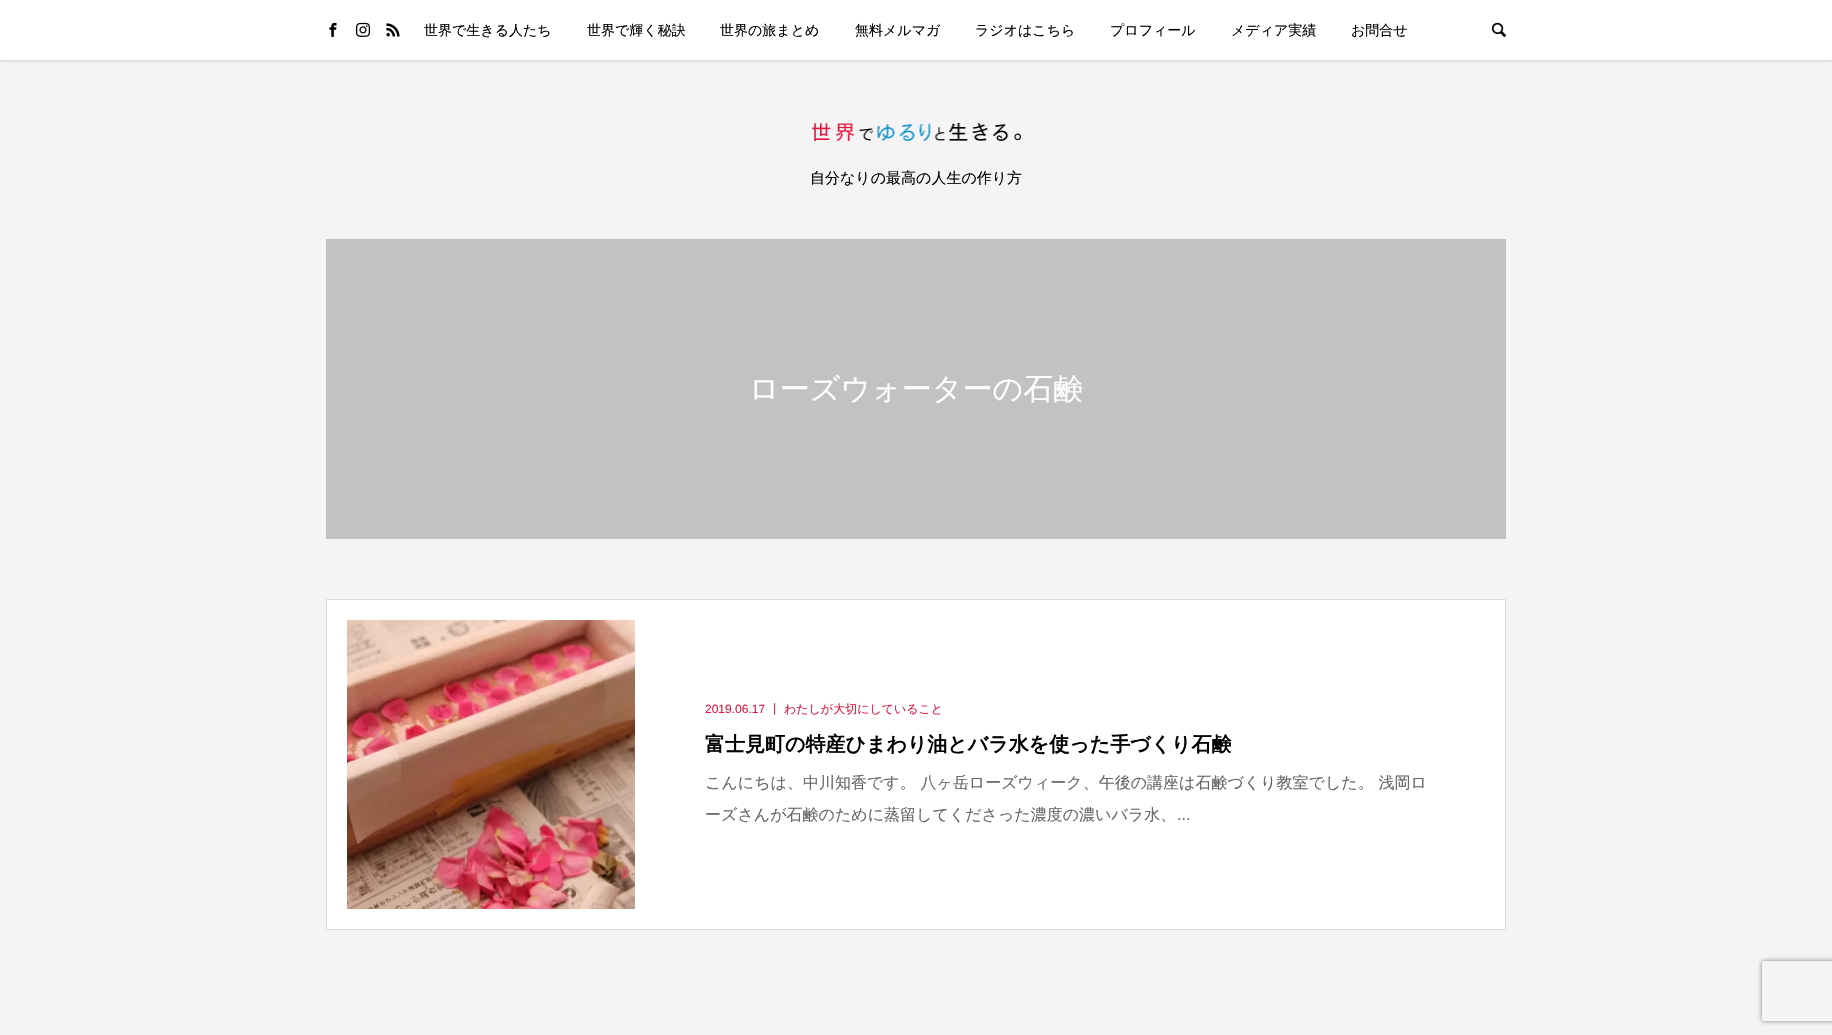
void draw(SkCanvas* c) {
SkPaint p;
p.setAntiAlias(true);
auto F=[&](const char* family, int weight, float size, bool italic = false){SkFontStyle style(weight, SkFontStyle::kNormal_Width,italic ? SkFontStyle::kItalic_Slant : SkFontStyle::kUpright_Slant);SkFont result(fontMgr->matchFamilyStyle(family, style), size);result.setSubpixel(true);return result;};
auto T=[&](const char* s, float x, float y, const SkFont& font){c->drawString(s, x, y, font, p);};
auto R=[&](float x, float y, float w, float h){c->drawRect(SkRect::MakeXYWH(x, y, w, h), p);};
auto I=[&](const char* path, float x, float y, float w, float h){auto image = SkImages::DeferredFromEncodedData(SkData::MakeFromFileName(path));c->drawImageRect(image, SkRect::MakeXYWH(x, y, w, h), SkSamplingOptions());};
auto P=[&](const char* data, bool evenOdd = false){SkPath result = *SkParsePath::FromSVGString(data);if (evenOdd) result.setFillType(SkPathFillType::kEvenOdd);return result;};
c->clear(0xfff4f4f4);
p.setColor(0xccdddddd);
p.setMaskFilter(SkMaskFilter::MakeBlur(kNormal_SkBlurStyle, 1.5));
c->drawRect(SkRect::MakeXYWH(0,1,1832,61),p);
p.setMaskFilter(nullptr);
p.setColor(0xffffffff);
R(0,0,1832,60);
p.setColor(0xffdddddd);
R(0,60,1832,1);
I("1.png",329,22,8,15);
I("2.png",356,22,14,15);
I("3.png",386,23,14,14);
auto f1 = F("WenQuanYi Zen Hei",500,14);
p.setColor(0xff000000);
T("世界で生きる人たち",424,35,f1);
T("世界で輝く秘訣",587,35,f1);
T("世界の旅まとめ",720,35,f1);
T("無料メルマガ",855,35,f1);
T("ラジオはこちら",975,35,f1);
T("プロフィール",1110,35,f1);
T("メディア実績",1231,35,f1);
T("お問合せ",1351,35,f1);
I("4.png",1491,22,16,15);
I("5.png",812,123,209,18);
auto f2 = F("WenQuanYi Zen Hei",500,15);
T("自分なりの最高の人生の作り方",810,183,f2);
p.setColor(0xffc2c2c2);
R(326,239,1180,300);
auto f3 = F("WenQuanYi Zen Hei",500,30);
p.setColor(0xffffffff);
T("ローズウォーターの石鹸",749,399,f3);
c->drawRect(SkRect::MakeXYWH(326.5,599.5,1179,330),p);
p.setStroke(true);
p.setStrokeWidth(1);
p.setColor(0xffdddddd);
c->drawRect(SkRect::MakeXYWH(326.5,599.5,1179,330),p);
I("6.png",347,620,288,289);
auto f4 = F("Liberation Sans",400,12);
p.setStroke(false);
p.setColor(0xffe21842);
T("2019.06.17",705,713,f4);
T("|",773,712,f4);
auto f5 = F("WenQuanYi Zen Hei",500,12);
T("わたしが大切にしていること",784,713,f5);
auto f6 = F("WenQuanYi Zen Hei",700,20);
p.setColor(0xff000000);
T("富士見町の特産ひまわり油とバラ水を使った手づくり石鹸",705,751,f6);
auto f7 = F("WenQuanYi Zen Hei",500,16);
p.setColor(0xff666666);
T("こんにちは、中川知香です。 八ヶ岳ローズウィーク、午後の講座は石鹸づくり教室でした。 浅岡ロ",705,788,f7);
T("ーズさんが石鹸のために蒸留してくださった濃度の濃いバラ水、",705,820,f7);
auto f8 = F("Liberation Sans",400,16);
T("...",1177,820,f8);
c->save();
c->clipPath(P("M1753 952h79v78h-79zm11 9h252c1 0 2 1 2 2v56c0 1-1 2-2 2h-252c-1 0-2-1-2-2v-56c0-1 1-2 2-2z",true),true);
p.setColor(0xff808080);
p.setMaskFilter(SkMaskFilter::MakeBlur(kNormal_SkBlurStyle, 2.5));
c->drawRoundRect(SkRect::MakeXYWH(1762,961,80,60),2,2,p);
p.setMaskFilter(nullptr);
c->restore();
}
